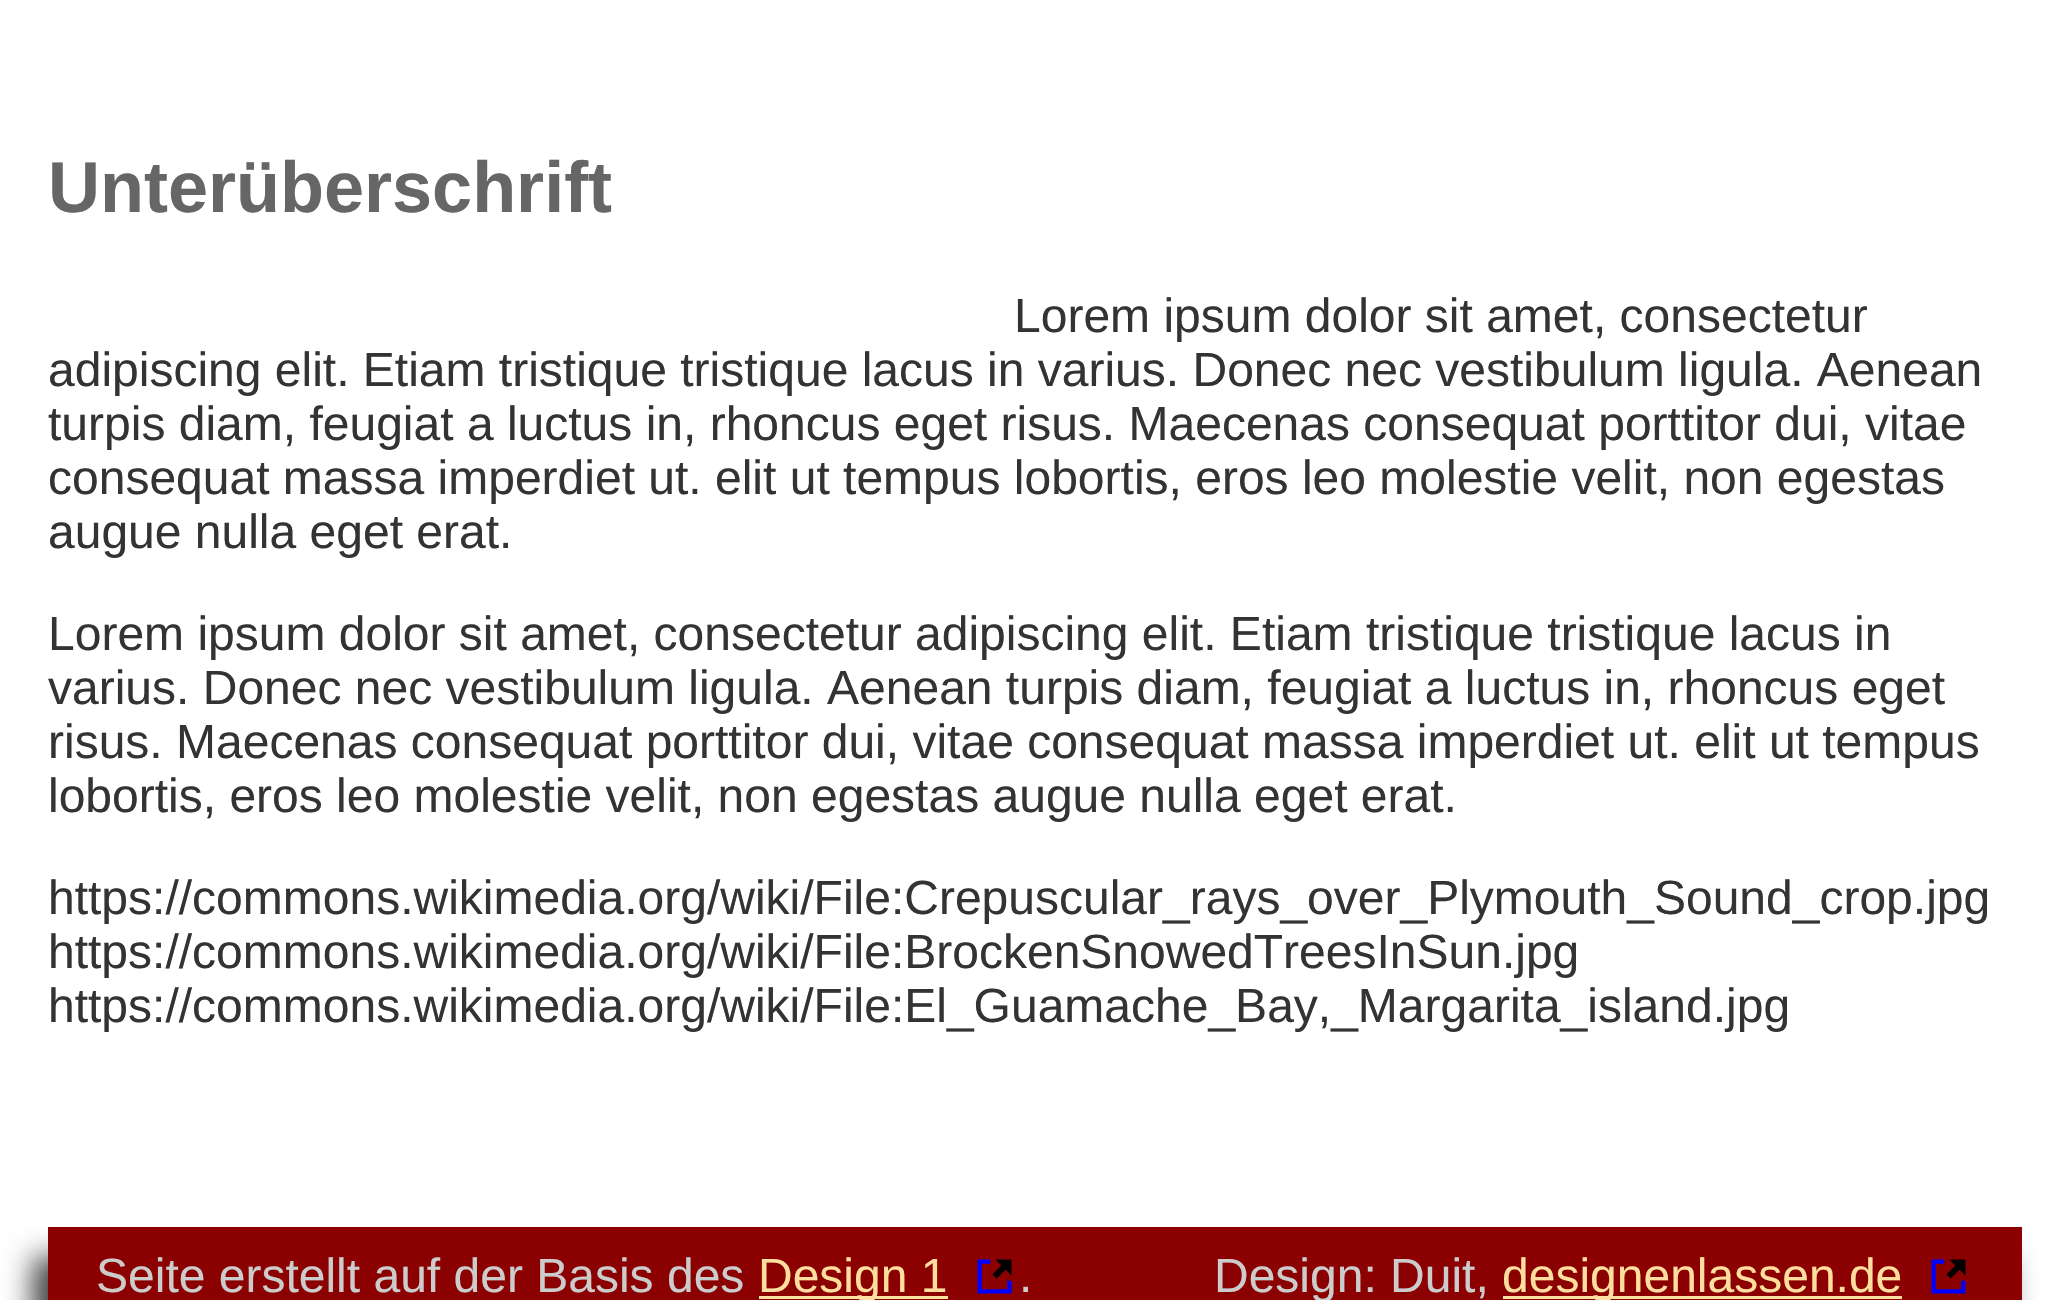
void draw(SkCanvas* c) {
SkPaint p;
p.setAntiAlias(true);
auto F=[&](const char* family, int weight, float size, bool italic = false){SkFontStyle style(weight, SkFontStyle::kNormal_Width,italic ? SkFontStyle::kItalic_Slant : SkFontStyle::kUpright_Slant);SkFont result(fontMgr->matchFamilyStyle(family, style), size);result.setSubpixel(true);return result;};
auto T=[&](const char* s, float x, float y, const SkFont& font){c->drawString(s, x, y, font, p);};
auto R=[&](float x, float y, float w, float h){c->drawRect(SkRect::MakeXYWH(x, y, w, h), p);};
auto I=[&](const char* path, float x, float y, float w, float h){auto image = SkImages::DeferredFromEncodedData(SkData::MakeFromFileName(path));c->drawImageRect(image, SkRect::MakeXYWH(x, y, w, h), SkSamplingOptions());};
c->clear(0xffffffff);
auto f1 = F("Liberation Sans",700,72);
p.setColor(0xff666666);
T("Unterüberschrift",48,212,f1);
auto f2 = F("Liberation Sans",400,48);
p.setColor(0xff333333);
T("Lorem ipsum dolor sit amet, consectetur",1014,332,f2);
T("adipiscing elit. Etiam tristique tristique lacus in varius. Donec nec vestibulum ligula. Aenean",48,386,f2);
T("turpis diam, feugiat a luctus in, rhoncus eget risus. Maecenas consequat porttitor dui, vitae",48,440,f2);
T("consequat massa imperdiet ut. elit ut tempus lobortis, eros leo molestie velit, non egestas",48,494,f2);
T("augue nulla eget erat.",48,548,f2);
T("Lorem ipsum dolor sit amet, consectetur adipiscing elit. Etiam tristique tristique lacus in",48,650,f2);
T("varius. Donec nec vestibulum ligula. Aenean turpis diam, feugiat a luctus in, rhoncus eget",48,704,f2);
T("risus. Maecenas consequat porttitor dui, vitae consequat massa imperdiet ut. elit ut tempus",48,758,f2);
T("lobortis, eros leo molestie velit, non egestas augue nulla eget erat.",48,812,f2);
T("https://commons.wikimedia.org/wiki/File:Crepuscular_rays_over_Plymouth_Sound_crop.jpg",48,914,f2);
T("https://commons.wikimedia.org/wiki/File:BrockenSnowedTreesInSun.jpg",48,968,f2);
T("https://commons.wikimedia.org/wiki/File:El_Guamache_Bay,_Margarita_island.jpg",48,1022,f2);
p.setColor(0xbf000000);
p.setMaskFilter(SkMaskFilter::MakeBlur(kNormal_SkBlurStyle, 14.5));
c->drawRect(SkRect::MakeXYWH(33,1257,1974,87),p);
p.setMaskFilter(nullptr);
p.setColor(0xff8b0000);
R(48,1227,1974,73);
p.setColor(0xffcccccc);
T("Seite erstellt auf der Basis des",96,1292,f2);
p.setColor(0xfffede9e);
R(759,1296,189,3);
T("Design 1",758,1292,f2);
I("1.png",977,1259,35,35);
p.setColor(0xffcccccc);
T(".",1019,1292,f2);
T("Design: Duit,",1214,1292,f2);
p.setColor(0xfffede9e);
R(1503,1296,399,3);
T("designenlassen.de",1502,1292,f2);
I("1.png",1931,1259,35,35);
}
